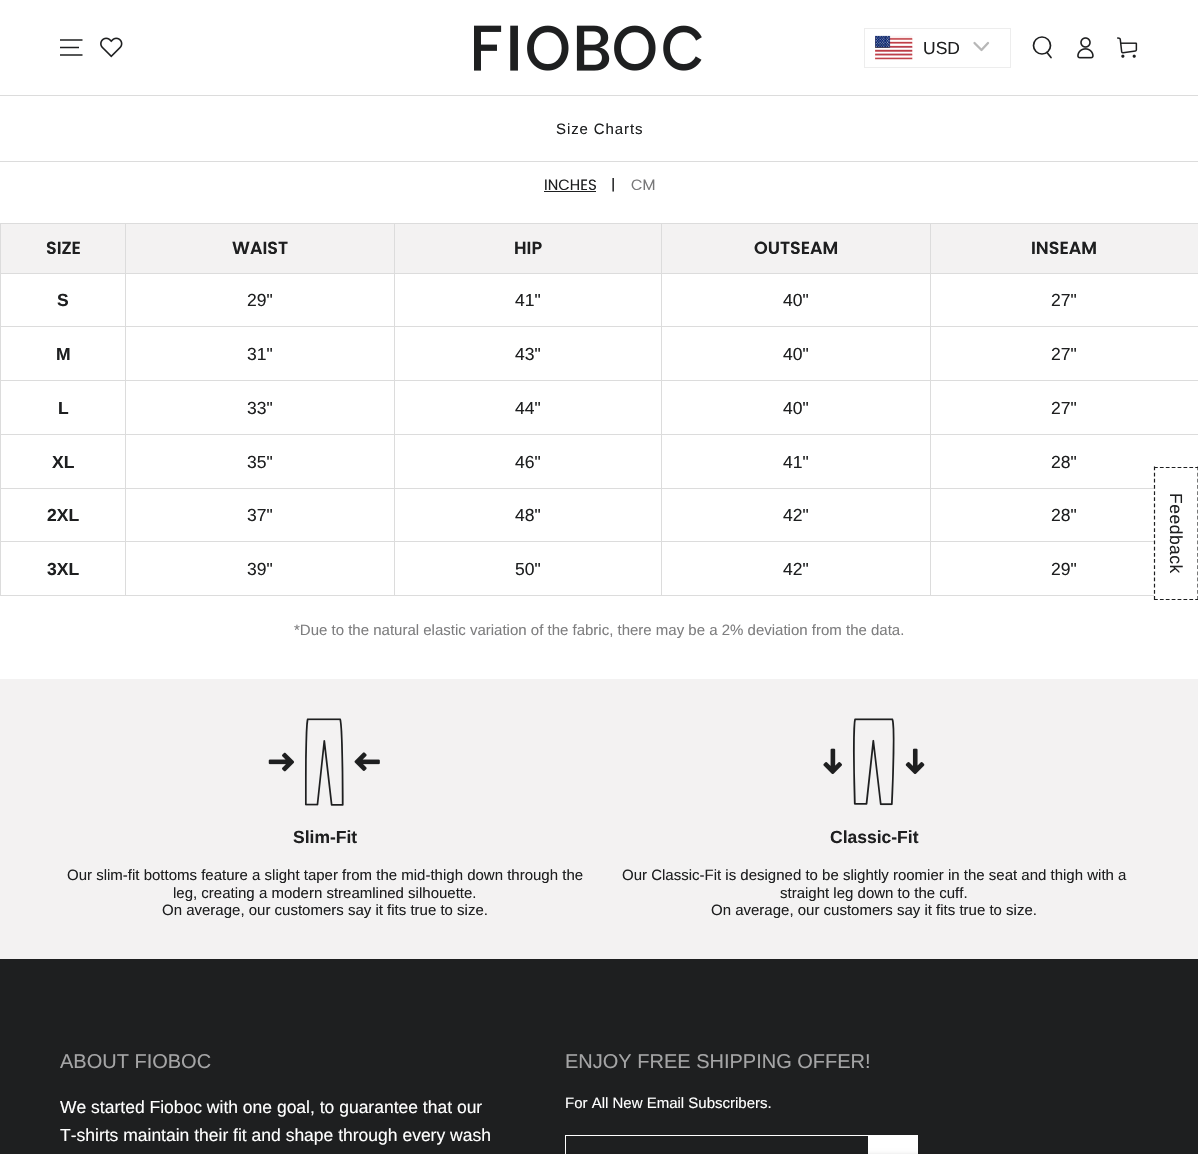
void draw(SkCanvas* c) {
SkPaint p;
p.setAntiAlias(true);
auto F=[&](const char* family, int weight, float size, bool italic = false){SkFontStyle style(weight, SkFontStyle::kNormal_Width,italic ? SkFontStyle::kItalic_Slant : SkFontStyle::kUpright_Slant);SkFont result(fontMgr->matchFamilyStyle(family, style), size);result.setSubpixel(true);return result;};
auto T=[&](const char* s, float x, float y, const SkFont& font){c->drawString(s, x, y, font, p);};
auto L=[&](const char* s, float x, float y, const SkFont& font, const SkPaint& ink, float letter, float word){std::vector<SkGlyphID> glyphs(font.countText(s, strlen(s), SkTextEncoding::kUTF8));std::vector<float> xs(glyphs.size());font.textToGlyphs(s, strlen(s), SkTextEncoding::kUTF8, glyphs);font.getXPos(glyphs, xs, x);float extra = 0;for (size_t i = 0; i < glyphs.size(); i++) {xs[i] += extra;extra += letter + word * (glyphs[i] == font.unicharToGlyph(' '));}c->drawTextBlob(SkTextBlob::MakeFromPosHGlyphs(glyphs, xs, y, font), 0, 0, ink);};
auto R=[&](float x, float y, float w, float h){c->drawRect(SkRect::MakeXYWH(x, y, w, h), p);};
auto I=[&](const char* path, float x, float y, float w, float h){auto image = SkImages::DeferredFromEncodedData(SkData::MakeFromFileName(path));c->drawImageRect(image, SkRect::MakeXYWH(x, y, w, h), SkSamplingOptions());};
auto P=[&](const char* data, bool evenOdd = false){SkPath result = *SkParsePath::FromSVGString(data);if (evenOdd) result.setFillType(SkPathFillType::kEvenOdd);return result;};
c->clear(0xffffffff);
p.setColor(0xffdcdcdc);
R(0,95,1198,1);
p.setStroke(true);
p.setStrokeWidth(1.5);
p.setColor(0xff1e1f20);
c->drawPath(P("M60 55h22.5m-22.5-7.5h19m-19-7.5h22.5"),p);
I("1.png",100,37,23,21);
I("2.png",474,25,228,46);
p.setStrokeWidth(1);
p.setColor(0xffededed);
c->drawRect(SkRect::MakeXYWH(864.5,28.5,146,39),p);
I("3.png",875,35,38,25);
auto f1 = F("Liberation Sans",400,17.5);
p.setStroke(false);
p.setColor(0xff1e1f20);
T("USD",923,54,f1);
p.setStroke(true);
p.setStrokeWidth(2.3);
p.setStrokeCap(SkPaint::kRound_Cap);
p.setStrokeJoin(SkPaint::kRound_Join);
p.setColor(0xffb7b7b7);
c->drawPath(P("M974.5 43l7 7l6.5-7"),p);
p.setStrokeWidth(1.7);
p.setStrokeCap(SkPaint::kButt_Cap);
p.setStrokeJoin(SkPaint::kMiter_Join);
p.setColor(0xff1e1f20);
c->drawCircle(1042,45.5,8.5,p);
p.setStrokeCap(SkPaint::kRound_Cap);
c->drawPath(P("M1047 52.5l4 5"),p);
I("4.png",1077,37,17,22);
I("5.png",1117,37,21,21);
auto f2 = F("Liberation Sans",400,15);
p.setStroke(false);
L("Size Charts",556,134,f2,p,.9,0);
p.setColor(0xffdcdcdc);
R(0,161,1198,1);
auto f3 = F("Poppins",400,15);
p.setColor(0xff1e1f20);
T("INCHES",544,190,f3);
R(544,191,52,1);
T("|",611,190,f3);
p.setColor(0xff787879);
T("CM",631,190,f3);
p.setColor(0xffdcdcdc);
R(0,223,1198,1);
R(0,595,1154,1);
R(0,223,1,373);
p.setColor(0xfff3f2f2);
R(1,224,124,49);
auto f4 = F("Poppins",600,17.5);
p.setColor(0xff1e1f20);
T("SIZE",46,254,f4);
p.setColor(0xfff3f2f2);
R(126,224,268,49);
p.setColor(0xffdcdcdc);
R(930,273,268,1);
R(930,326,268,1);
R(930,380,268,1);
R(930,434,268,1);
R(930,488,224,1);
R(930,541,224,1);
R(930,541,1,55);
R(661,541,270,1);
R(930,488,1,55);
R(661,488,270,1);
R(930,434,1,55);
R(661,434,270,1);
R(930,380,1,55);
R(661,380,270,1);
R(930,326,1,55);
R(661,326,270,1);
R(930,273,1,55);
R(661,273,270,1);
R(661,541,1,55);
R(394,541,269,1);
R(661,488,1,55);
R(394,488,269,1);
R(661,434,1,55);
R(394,434,269,1);
R(661,380,1,55);
R(394,380,269,1);
R(661,326,1,55);
R(394,326,269,1);
R(661,273,1,55);
R(394,273,269,1);
R(394,541,1,55);
R(125,541,270,1);
R(394,488,1,55);
R(125,488,270,1);
R(394,434,1,55);
R(125,434,270,1);
R(394,380,1,55);
R(125,380,270,1);
R(394,326,1,55);
R(125,326,270,1);
R(394,273,1,55);
R(125,273,270,1);
R(125,541,1,55);
R(0,541,126,1);
R(125,488,1,55);
R(0,488,126,1);
R(125,434,1,55);
R(0,434,126,1);
R(125,380,1,55);
R(0,380,126,1);
R(125,326,1,55);
R(0,326,126,1);
R(125,273,1,55);
R(0,273,126,1);
R(125,223,1,51);
p.setColor(0xff1e1f20);
T("WAIST",232,254,f4);
p.setColor(0xfff3f2f2);
R(395,224,535,49);
p.setColor(0xffdcdcdc);
R(394,223,1,51);
p.setColor(0xff1e1f20);
T("HIP",514,254,f4);
p.setColor(0xffdcdcdc);
R(661,223,1,51);
p.setColor(0xff1e1f20);
T("OUTSEAM",754,254,f4);
p.setColor(0xfff3f2f2);
R(931,224,267,49);
p.setColor(0xffdcdcdc);
R(930,223,1,51);
p.setColor(0xff1e1f20);
T("INSEAM",1031,254,f4);
auto f5 = F("Liberation Sans",700,17.5);
T("S",57,306,f5);
T("29\"",247,306,f1);
T("41\"",515,306,f1);
T("40\"",783,306,f1);
T("27\"",1051,306,f1);
T("M",56,360,f5);
T("31\"",247,360,f1);
T("43\"",515,360,f1);
T("40\"",783,360,f1);
T("27\"",1051,360,f1);
T("L",58,414,f5);
T("33\"",247,414,f1);
T("44\"",515,414,f1);
T("40\"",783,414,f1);
T("27\"",1051,414,f1);
T("XL",52,468,f5);
T("35\"",247,468,f1);
T("46\"",515,468,f1);
T("41\"",783,468,f1);
T("28\"",1051,468,f1);
T("2XL",47,521,f5);
T("37\"",247,521,f1);
T("48\"",515,521,f1);
T("42\"",783,521,f1);
T("28\"",1051,521,f1);
T("3XL",47,575,f5);
T("39\"",247,575,f1);
T("50\"",515,575,f1);
T("42\"",783,575,f1);
T("29\"",1051,575,f1);
p.setColor(0xff7e7e7f);
T("*Due to the natural elastic variation of the fabric, there may be a 2% deviation from the data.",294,635,f2);
p.setColor(0xfff3f2f2);
R(0,679,1198,280);
I("6.png",268,718,112,88);
p.setColor(0xff1e1f20);
T("Slim-Fit",293,843,f5);
T("Our slim-fit bottoms feature a slight taper from the mid-thigh down through the",67,880,f2);
T("leg, creating a modern streamlined silhouette.",173,898,f2);
T("On average, our customers say it fits true to size.",162,915,f2);
I("7.png",823,718,102,88);
T("Classic-Fit",830,843,f5);
T("Our Classic-Fit is designed to be slightly roomier in the seat and thigh with a",622,880,f2);
T("straight leg down to the cuff.",780,898,f2);
T("On average, our customers say it fits true to size.",711,915,f2);
p.setStroke(true);
p.setStrokeWidth(1.2);
p.setStrokeCap(SkPaint::kButt_Cap);
p.setPathEffect(SkDashPathEffect::Make({{3.75f,2.42f}}, 0));
c->drawPath(P("M1198 466.5v133.5"),p);
p.setPathEffect(nullptr);
p.setPathEffect(SkDashPathEffect::Make({{3.75f,2.14f}}, 0));
c->drawPath(P("M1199 599.5h-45"),p);
p.setPathEffect(nullptr);
p.setPathEffect(SkDashPathEffect::Make({{3.75f,2.42f}}, 0));
c->drawPath(P("M1154.5 466.5v133.5"),p);
p.setPathEffect(nullptr);
p.setPathEffect(SkDashPathEffect::Make({{3.75f,2.14f}}, 0));
c->drawPath(P("M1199 467.5h-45"),p);
p.setPathEffect(nullptr);
p.setStroke(false);
c->save();
c->rotate(90,1170,493);
L("Feedback",1170,493,f1,p,.5,0);
c->restore();
R(0,959,1198,195);
p.setStroke(true);
p.setStrokeWidth(1);
p.setColor(0xffffffff);
c->drawRect(SkRect::MakeXYWH(565.5,1135.5,352,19),p);
p.setStroke(false);
R(868,1136,49,18);
p.setColor(0x33000000);
p.setMaskFilter(SkMaskFilter::MakeBlur(kNormal_SkBlurStyle, 3));
c->drawRoundRect(SkRect::MakeXYWH(511,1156,650,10),2.5,2.5,p);
p.setMaskFilter(nullptr);
auto f6 = F("Liberation Sans",400,20);
p.setColor(0xffa5a5a6);
T("ABOUT FIOBOC",60,1068,f6);
p.setColor(0xffffffff);
T("We started Fioboc with one goal, to guarantee that our",60,1113,f1);
T("T-shirts maintain their fit and shape through every wash",60,1141,f1);
p.setColor(0xffa5a5a6);
T("ENJOY FREE SHIPPING OFFER!",565,1068,f6);
p.setColor(0xffffffff);
T("For All New Email Subscribers.",565,1108,f2);
}
